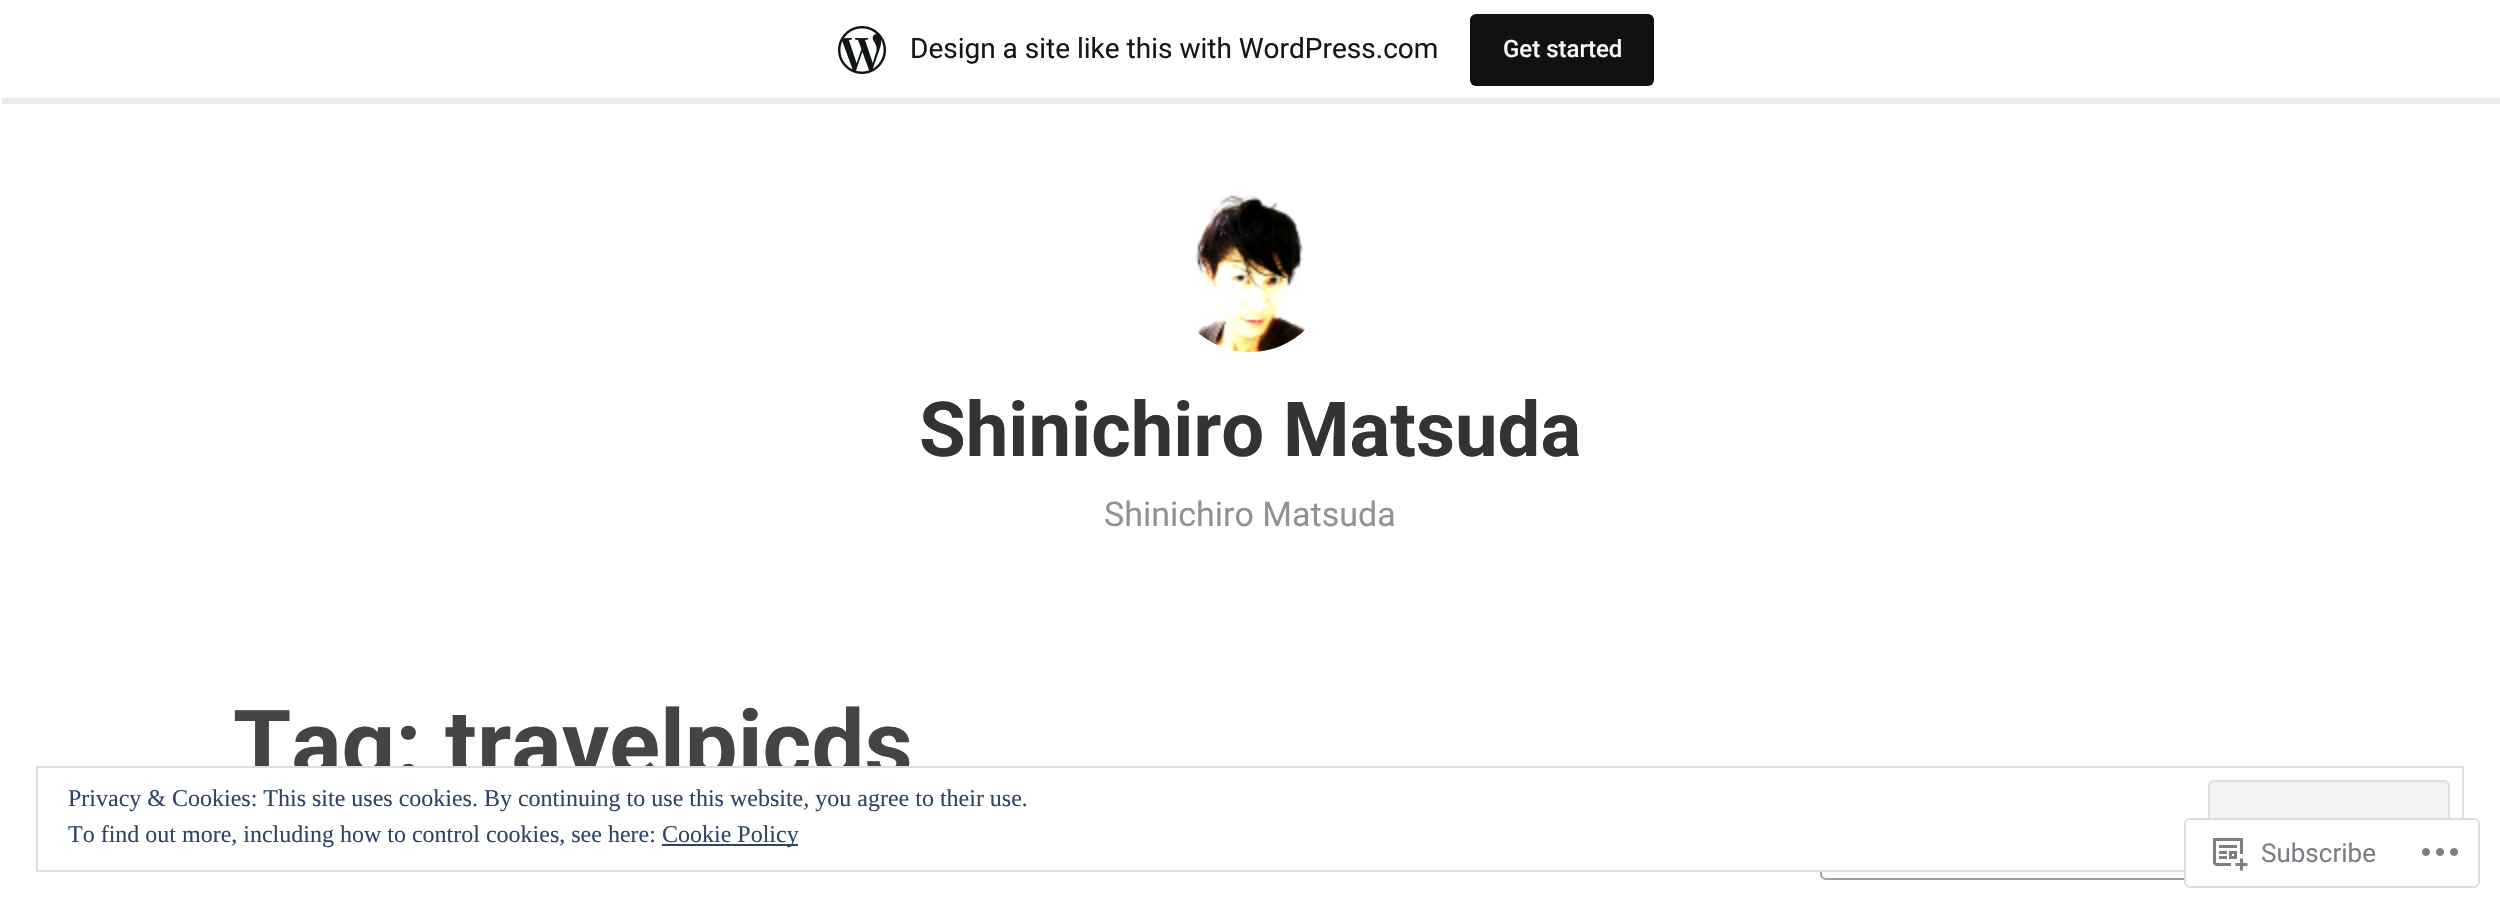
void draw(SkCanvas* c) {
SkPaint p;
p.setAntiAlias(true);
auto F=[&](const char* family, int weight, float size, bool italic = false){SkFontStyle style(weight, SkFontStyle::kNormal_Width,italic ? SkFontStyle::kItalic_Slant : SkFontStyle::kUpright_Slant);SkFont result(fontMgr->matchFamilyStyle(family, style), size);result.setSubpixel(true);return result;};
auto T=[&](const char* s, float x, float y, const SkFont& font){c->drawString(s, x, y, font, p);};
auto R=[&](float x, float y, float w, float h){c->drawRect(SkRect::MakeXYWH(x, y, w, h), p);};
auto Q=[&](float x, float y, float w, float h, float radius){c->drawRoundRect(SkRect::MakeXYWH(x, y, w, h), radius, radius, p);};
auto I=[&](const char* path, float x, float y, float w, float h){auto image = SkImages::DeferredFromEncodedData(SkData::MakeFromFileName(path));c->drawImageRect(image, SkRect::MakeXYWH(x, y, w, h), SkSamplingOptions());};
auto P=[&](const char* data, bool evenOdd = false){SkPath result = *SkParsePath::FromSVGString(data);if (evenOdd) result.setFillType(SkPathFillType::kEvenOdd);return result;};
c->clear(0xffffffff);
p.setColor(0x14000000);
c->drawPath(P("M2 98v6h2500v-98h-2v92z"),p);
I("1.png",838,26,48,48);
auto f1 = F("Roboto",400,28);
p.setColor(0xff171717);
T("Design a site like this with WordPress.com",910,58,f1);
p.setColor(0xff111111);
Q(1470,14,184,72,6);
auto f2 = F("Roboto",500,24);
p.setColor(0xfff6f7f7);
T("Get started",1503,57,f2);
I("2.png",1195,195,111,157);
auto f3 = F("Roboto",700,76);
p.setColor(0xff333332);
T("Shinichiro Matsuda",919,456,f3);
auto f4 = F("Roboto",400,34);
p.setColor(0xff929292);
T("Shinichiro Matsuda",1104,526,f4);
auto f5 = F("Roboto",700,94);
p.setColor(0xff444444);
T("Tag: travelpicds",233,777,f5);
p.setStroke(true);
p.setStrokeWidth(2);
p.setColor(0xffa1a1a1);
c->drawRoundRect(SkRect::MakeXYWH(1821,825,446,54),5,5,p);
p.setStroke(false);
p.setColor(0xffffffff);
R(255,768,2013,102);
p.setStroke(true);
p.setColor(0xffdedede);
c->drawRect(SkRect::MakeXYWH(37,767,2426,104),p);
auto f6 = F("Liberation Serif",400,24);
p.setStroke(false);
p.setColor(0xff2e4467);
T("Privacy & Cookies: This site uses cookies. By continuing to use this website, you agree to their use.",68,806,f6);
p.setColor(0xfff3f3f3);
c->drawRoundRect(SkRect::MakeXYWH(2209,781,240,76),5,5,p);
p.setStroke(true);
p.setColor(0xffdedede);
c->drawRoundRect(SkRect::MakeXYWH(2209,781,240,76),5,5,p);
p.setStroke(false);
p.setColor(0xff2e4467);
T("To find out more, including how to control cookies, see here:",68,842,f6);
R(662,844,136,2);
T("Cookie Policy",662,842,f6);
p.setColor(0xfaffffff);
Q(2184,818,296,70,6);
p.setStroke(true);
p.setColor(0xfadcdcde);
c->drawRoundRect(SkRect::MakeXYWH(2185,819,294,68),5,5,p);
I("3.png",2213,838,35,33);
auto f7 = F("Roboto",400,26);
p.setStroke(false);
p.setColor(0xff7b7f84);
T("Subscribe",2261,862,f7);
I("4.png",2422,848,36,8);
}
